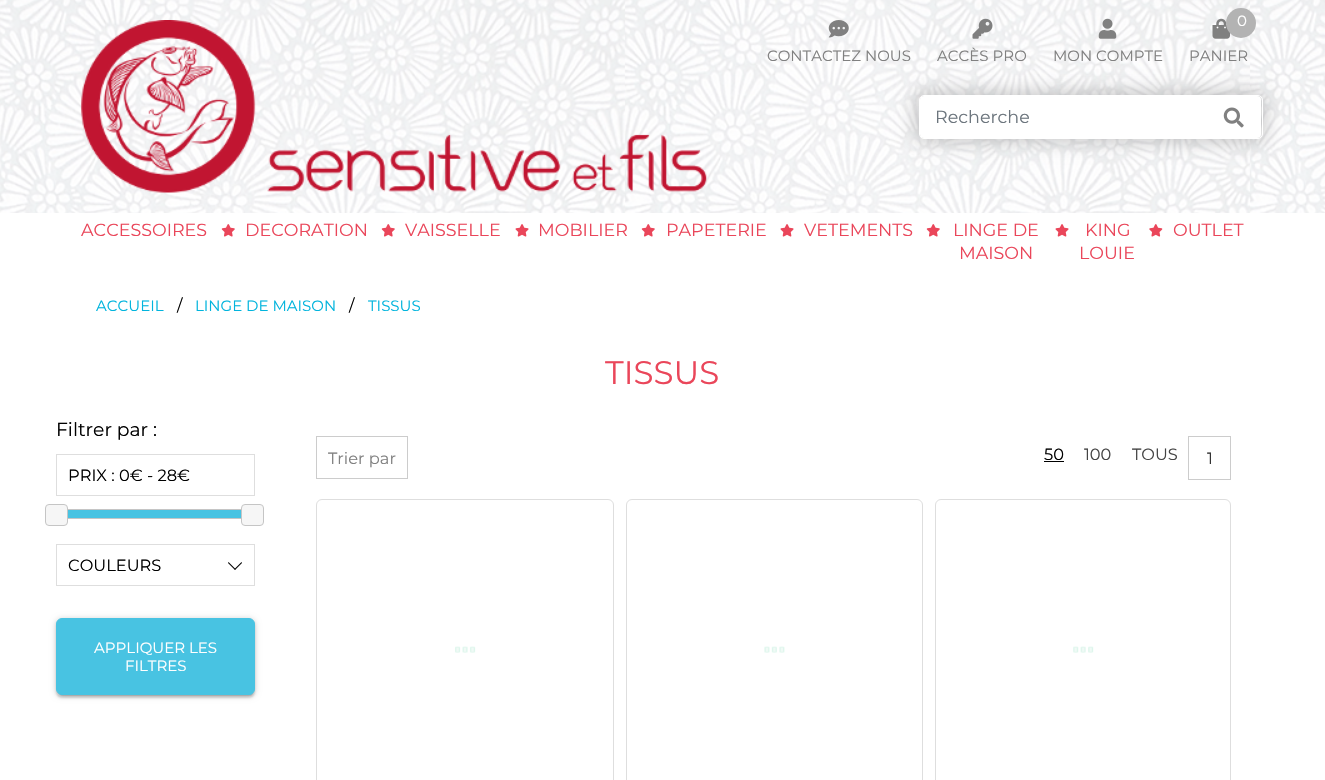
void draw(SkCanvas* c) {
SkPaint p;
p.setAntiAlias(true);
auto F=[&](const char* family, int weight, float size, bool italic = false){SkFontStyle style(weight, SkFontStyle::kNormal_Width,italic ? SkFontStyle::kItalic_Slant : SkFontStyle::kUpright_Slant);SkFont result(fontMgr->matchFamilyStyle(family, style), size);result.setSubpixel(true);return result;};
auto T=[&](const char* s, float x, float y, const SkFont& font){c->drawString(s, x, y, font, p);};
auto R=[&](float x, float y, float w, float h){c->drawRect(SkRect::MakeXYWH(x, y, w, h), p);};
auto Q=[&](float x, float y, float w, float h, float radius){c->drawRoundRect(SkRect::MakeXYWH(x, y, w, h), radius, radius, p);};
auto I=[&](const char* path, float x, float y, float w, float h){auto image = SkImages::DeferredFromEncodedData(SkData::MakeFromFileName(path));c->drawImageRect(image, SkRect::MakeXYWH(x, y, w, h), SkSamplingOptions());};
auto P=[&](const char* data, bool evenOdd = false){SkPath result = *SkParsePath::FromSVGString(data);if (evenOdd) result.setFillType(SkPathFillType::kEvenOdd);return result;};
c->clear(0xffffffff);
I("1.png",0,0,1325,213);
p.setColor(0x99ffffff);
R(0,0,1325,213);
I("2.png",81,20,626,173);
I("3.png",828,20,21,18);
auto f1 = F("Montserrat",400,15);
p.setColor(0xff808080);
T("CONTACTEZ NOUS",767,61,f1);
I("4.png",972,18,21,21);
T("ACCÈS PRO",937,61,f1);
I("5.png",1098,18,19,21);
T("MON COMPTE",1053,61,f1);
I("6.png",1212,18,18,21);
p.setColor(0xffb3b3b3);
c->drawCircle(1241,23,15,p);
p.setColor(0xffffffff);
T("0",1237,26,f1);
p.setColor(0xff808080);
T("PANIER",1189,61,f1);
p.setColor(0x33000000);
p.setMaskFilter(SkMaskFilter::MakeBlur(kNormal_SkBlurStyle, 9));
c->drawRoundRect(SkRect::MakeXYWH(915,91,351,52),9,9,p);
p.setMaskFilter(nullptr);
p.setColor(0xffffffff);
Q(920,96,341,42,4);
p.setStroke(true);
p.setStrokeWidth(1);
c->drawRoundRect(SkRect::MakeXYWH(919.5,95.5,343,43),4.5,4.5,p);
auto f2 = F("Montserrat",400,17.5);
p.setStroke(false);
p.setColor(0xff6c757d);
T("Recherche",935,123,f2);
I("7.png",1223,107,21,21);
p.setColor(0xffea465a);
T("ACCESSOIRES",81,236,f2);
I("8.png",221,224,14,13);
T("DECORATION",245,236,f2);
I("8.png",381,224,14,13);
T("VAISSELLE",405,236,f2);
I("9.png",515,224,14,13);
T("MOBILIER",538,236,f2);
I("8.png",641,224,14,13);
T("PAPETERIE",666,236,f2);
I("9.png",780,224,14,13);
T("VETEMENTS",804,236,f2);
I("8.png",926,224,14,13);
T("LINGE DE",953,236,f2);
T("MAISON",959,259,f2);
I("9.png",1055,224,14,13);
T("KING",1085,236,f2);
T("LOUIE",1079,259,f2);
I("10.png",1149,224,14,13);
T("OUTLET",1173,236,f2);
p.setColor(0xff01b4dd);
T("ACCUEIL",96,311,f1);
auto f3 = F("Montserrat",400,16.25);
p.setColor(0xff000000);
T("/",177,311,f3);
p.setColor(0xff01b4dd);
T("LINGE DE MAISON",195,311,f1);
p.setColor(0xff000000);
T("/",349,311,f3);
p.setColor(0xff01b4dd);
T("TISSUS",368,311,f1);
auto f4 = F("Montserrat",400,32.5);
p.setColor(0xffea465a);
T("TISSUS",605,384,f4);
auto f5 = F("Montserrat",400,18.75);
p.setColor(0xff000000);
T("Filtrer par :",56,436,f5);
p.setStroke(true);
p.setColor(0xffdedede);
c->drawRect(SkRect::MakeXYWH(56.5,454.5,198,41),p);
p.setStroke(false);
p.setColor(0xff000000);
T("PRIX : 0€ - 28€",68,481,f3);
p.setStroke(true);
p.setColor(0xffc5c5c5);
c->drawRect(SkRect::MakeXYWH(56.5,509.5,198,9),p);
p.setStroke(false);
p.setColor(0xfff6f6f6);
c->drawRoundRect(SkRect::MakeXYWH(45.5,504.5,22,21),3.5,3.5,p);
p.setStroke(true);
p.setColor(0xffc5c5c5);
c->drawRoundRect(SkRect::MakeXYWH(45.5,504.5,22,21),3.5,3.5,p);
p.setStroke(false);
p.setColor(0xff48c3e2);
R(68,510,173,8);
p.setColor(0xfff6f6f6);
c->drawRoundRect(SkRect::MakeXYWH(241.5,504.5,22,21),3.5,3.5,p);
p.setStroke(true);
p.setColor(0xffc5c5c5);
c->drawRoundRect(SkRect::MakeXYWH(241.5,504.5,22,21),3.5,3.5,p);
p.setColor(0xffdedede);
c->drawRect(SkRect::MakeXYWH(56.5,544.5,198,41),p);
p.setStroke(false);
p.setColor(0xff000000);
T("COULEURS",68,571,f3);
c->drawPath(P("M228.5 562l7 7l-.5 1l-7-7z"),p);
c->drawPath(P("M234.5 569l7-7l.5 1l-7 7z"),p);
p.setColor(0x33000000);
p.setMaskFilter(SkMaskFilter::MakeBlur(kNormal_SkBlurStyle, 3));
c->drawRoundRect(SkRect::MakeXYWH(56,619,199,77),6,6,p);
p.setMaskFilter(nullptr);
p.setColor(0x1f000000);
p.setMaskFilter(SkMaskFilter::MakeBlur(kNormal_SkBlurStyle, .5));
c->drawRoundRect(SkRect::MakeXYWH(59,624,194,72),4,4,p);
p.setMaskFilter(nullptr);
p.setColor(0x24000000);
p.setMaskFilter(SkMaskFilter::MakeBlur(kNormal_SkBlurStyle, 1));
c->drawRoundRect(SkRect::MakeXYWH(56,620,199,78),6,6,p);
p.setMaskFilter(nullptr);
p.setColor(0xff48c3e2);
c->drawRoundRect(SkRect::MakeXYWH(56.5,618.5,198,76),5.5,5.5,p);
p.setStroke(true);
c->drawRoundRect(SkRect::MakeXYWH(56.5,618.5,198,76),5.5,5.5,p);
p.setStroke(false);
p.setColor(0xffffffff);
T("APPLIQUER LES",94,653,f1);
T("FILTRES",125,671,f1);
p.setStroke(true);
p.setColor(0xffcccccc);
c->drawRect(SkRect::MakeXYWH(316.5,436.5,91,42),p);
p.setStroke(false);
p.setColor(0xff808080);
T("Trier par",328,464,f3);
p.setColor(0xff000000);
T("50",1044,460,f3);
R(1044,461,20,1);
p.setColor(0xff444444);
T("100",1084,460,f3);
T("TOUS",1132,460,f3);
p.setStroke(true);
p.setColor(0xffcccccc);
c->drawRect(SkRect::MakeXYWH(1188.5,436.5,42,43),p);
p.setStroke(false);
p.setColor(0xff333333);
T("1",1207,464,f3);
p.setStroke(true);
p.setColor(0xffdedede);
c->drawRoundRect(SkRect::MakeXYWH(316.5,499.5,297,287),5.5,5.5,p);
I("11.png",455,646,21,7);
c->drawRoundRect(SkRect::MakeXYWH(626.5,499.5,296,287),5.5,5.5,p);
I("12.png",764,646,21,7);
c->drawRoundRect(SkRect::MakeXYWH(935.5,499.5,295,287),5.5,5.5,p);
I("13.png",1073,646,21,7);
}
